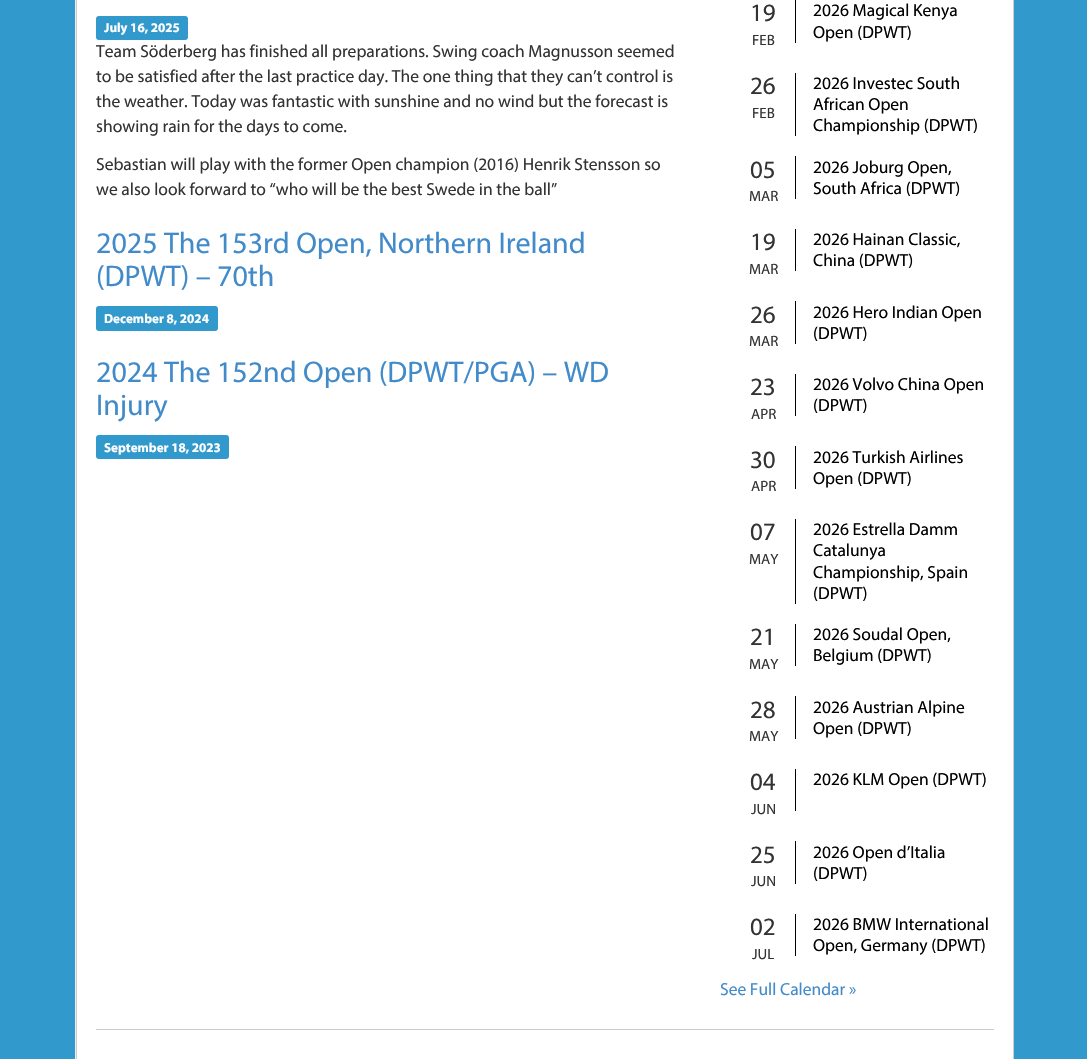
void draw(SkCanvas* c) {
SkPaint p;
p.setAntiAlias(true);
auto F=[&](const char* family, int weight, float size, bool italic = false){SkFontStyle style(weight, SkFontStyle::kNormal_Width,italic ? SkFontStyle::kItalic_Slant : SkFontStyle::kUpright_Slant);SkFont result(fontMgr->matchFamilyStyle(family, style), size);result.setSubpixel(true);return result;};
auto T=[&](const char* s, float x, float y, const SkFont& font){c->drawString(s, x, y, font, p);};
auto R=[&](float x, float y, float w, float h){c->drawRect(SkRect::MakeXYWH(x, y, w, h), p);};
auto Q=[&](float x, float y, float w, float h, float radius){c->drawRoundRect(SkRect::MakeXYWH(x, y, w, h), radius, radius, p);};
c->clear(0xff3299cc);
p.setColor(0xffeeeeee);
R(75,0,1,1059);
p.setColor(0xffffffff);
R(77,0,936,1059);
p.setColor(0xffcccccc);
R(1013,0,1,1059);
R(76,0,1,1059);
p.setColor(0xff3299cc);
Q(96,16,92,24,3);
auto f1 = F("Myriad",700,13.1);
p.setColor(0xffffffff);
T("July 16, 2025",104,32,f1);
auto f2 = F("Myriad",400,17.5);
p.setColor(0xff333333);
T("Team Söderberg has finished all preparations. Swing coach Magnusson seemed",96,57,f2);
T("to be satisfied after the last practice day. The one thing that they can’t control is",96,82,f2);
T("the weather. Today was fantastic with sunshine and no wind but the forecast is",96,107,f2);
T("showing rain for the days to come.",96,132,f2);
T("Sebastian will play with the former Open champion (2016) Henrik Stensson so",96,170,f2);
T("we also look forward to “who will be the best Swede in the ball”",96,195,f2);
auto f3 = F("Myriad",400,30);
p.setColor(0xff428bca);
T("2025 The 153rd Open, Northern Ireland",96,253,f3);
T("(DPWT) – 70th",96,286,f3);
p.setColor(0xff3299cc);
Q(96,306,122,25,3);
p.setColor(0xffffffff);
T("December 8, 2024",104,323,f1);
p.setColor(0xff428bca);
T("2024 The 152nd Open (DPWT/PGA) – WD",96,382,f3);
T("Injury",96,415,f3);
p.setColor(0xff3299cc);
Q(96,435,133,24,3);
p.setColor(0xffffffff);
T("September 18, 2023",104,452,f1);
auto f4 = F("Myriad",400,25);
p.setColor(0xff333333);
T("19",750,21,f4);
auto f5 = F("Myriad",400,15);
T("FEB",752,45,f5);
p.setColor(0xff000000);
R(795,0,1,43);
T("2026 Magical Kenya",813,16,f2);
T("Open (DPWT)",813,38,f2);
p.setColor(0xff333333);
T("26",750,94,f4);
T("FEB",752,118,f5);
p.setColor(0xff000000);
R(795,73,1,63);
T("2026 Investec South",813,89,f2);
T("African Open",813,110,f2);
T("Championship (DPWT)",813,131,f2);
p.setColor(0xff333333);
T("05",750,178,f4);
T("MAR",749,201,f5);
p.setColor(0xff000000);
R(795,156,1,43);
T("2026 Joburg Open,",813,173,f2);
T("South Africa (DPWT)",813,194,f2);
p.setColor(0xff333333);
T("19",750,250,f4);
T("MAR",749,274,f5);
p.setColor(0xff000000);
R(795,229,1,42);
T("2026 Hainan Classic,",813,245,f2);
T("China (DPWT)",813,266,f2);
p.setColor(0xff333333);
T("26",750,323,f4);
T("MAR",749,346,f5);
p.setColor(0xff000000);
R(795,301,1,43);
T("2026 Hero Indian Open",813,318,f2);
T("(DPWT)",813,339,f2);
p.setColor(0xff333333);
T("23",750,395,f4);
T("APR",751,419,f5);
p.setColor(0xff000000);
R(795,374,1,42);
T("2026 Volvo China Open",813,390,f2);
T("(DPWT)",813,411,f2);
p.setColor(0xff333333);
T("30",750,468,f4);
T("APR",751,491,f5);
p.setColor(0xff000000);
R(795,446,1,43);
T("2026 Turkish Airlines",813,463,f2);
T("Open (DPWT)",813,484,f2);
p.setColor(0xff333333);
T("07",750,540,f4);
T("MAY",749,564,f5);
p.setColor(0xff000000);
R(795,519,1,85);
T("2026 Estrella Damm",813,535,f2);
T("Catalunya",813,556,f2);
T("Championship, Spain",813,578,f2);
T("(DPWT)",813,599,f2);
p.setColor(0xff333333);
T("21",750,645,f4);
T("MAY",749,669,f5);
p.setColor(0xff000000);
R(795,624,1,42);
T("2026 Soudal Open,",813,640,f2);
T("Belgium (DPWT)",813,661,f2);
p.setColor(0xff333333);
T("28",750,718,f4);
T("MAY",749,741,f5);
p.setColor(0xff000000);
R(795,696,1,43);
T("2026 Austrian Alpine",813,713,f2);
T("Open (DPWT)",813,734,f2);
p.setColor(0xff333333);
T("04",750,790,f4);
T("JUN",751,814,f5);
p.setColor(0xff000000);
R(795,769,1,42);
T("2026 KLM Open (DPWT)",813,785,f2);
p.setColor(0xff333333);
T("25",750,863,f4);
T("JUN",751,886,f5);
p.setColor(0xff000000);
R(795,841,1,43);
T("2026 Open d’Italia",813,858,f2);
T("(DPWT)",813,879,f2);
p.setColor(0xff333333);
T("02",750,935,f4);
T("JUL",752,959,f5);
p.setColor(0xff000000);
R(795,914,1,42);
T("2026 BMW International",813,930,f2);
T("Open, Germany (DPWT)",813,951,f2);
p.setColor(0xff428bca);
T("See Full Calendar »",720,995,f2);
p.setColor(0xffcccccc);
R(96,1029,898,1);
}
